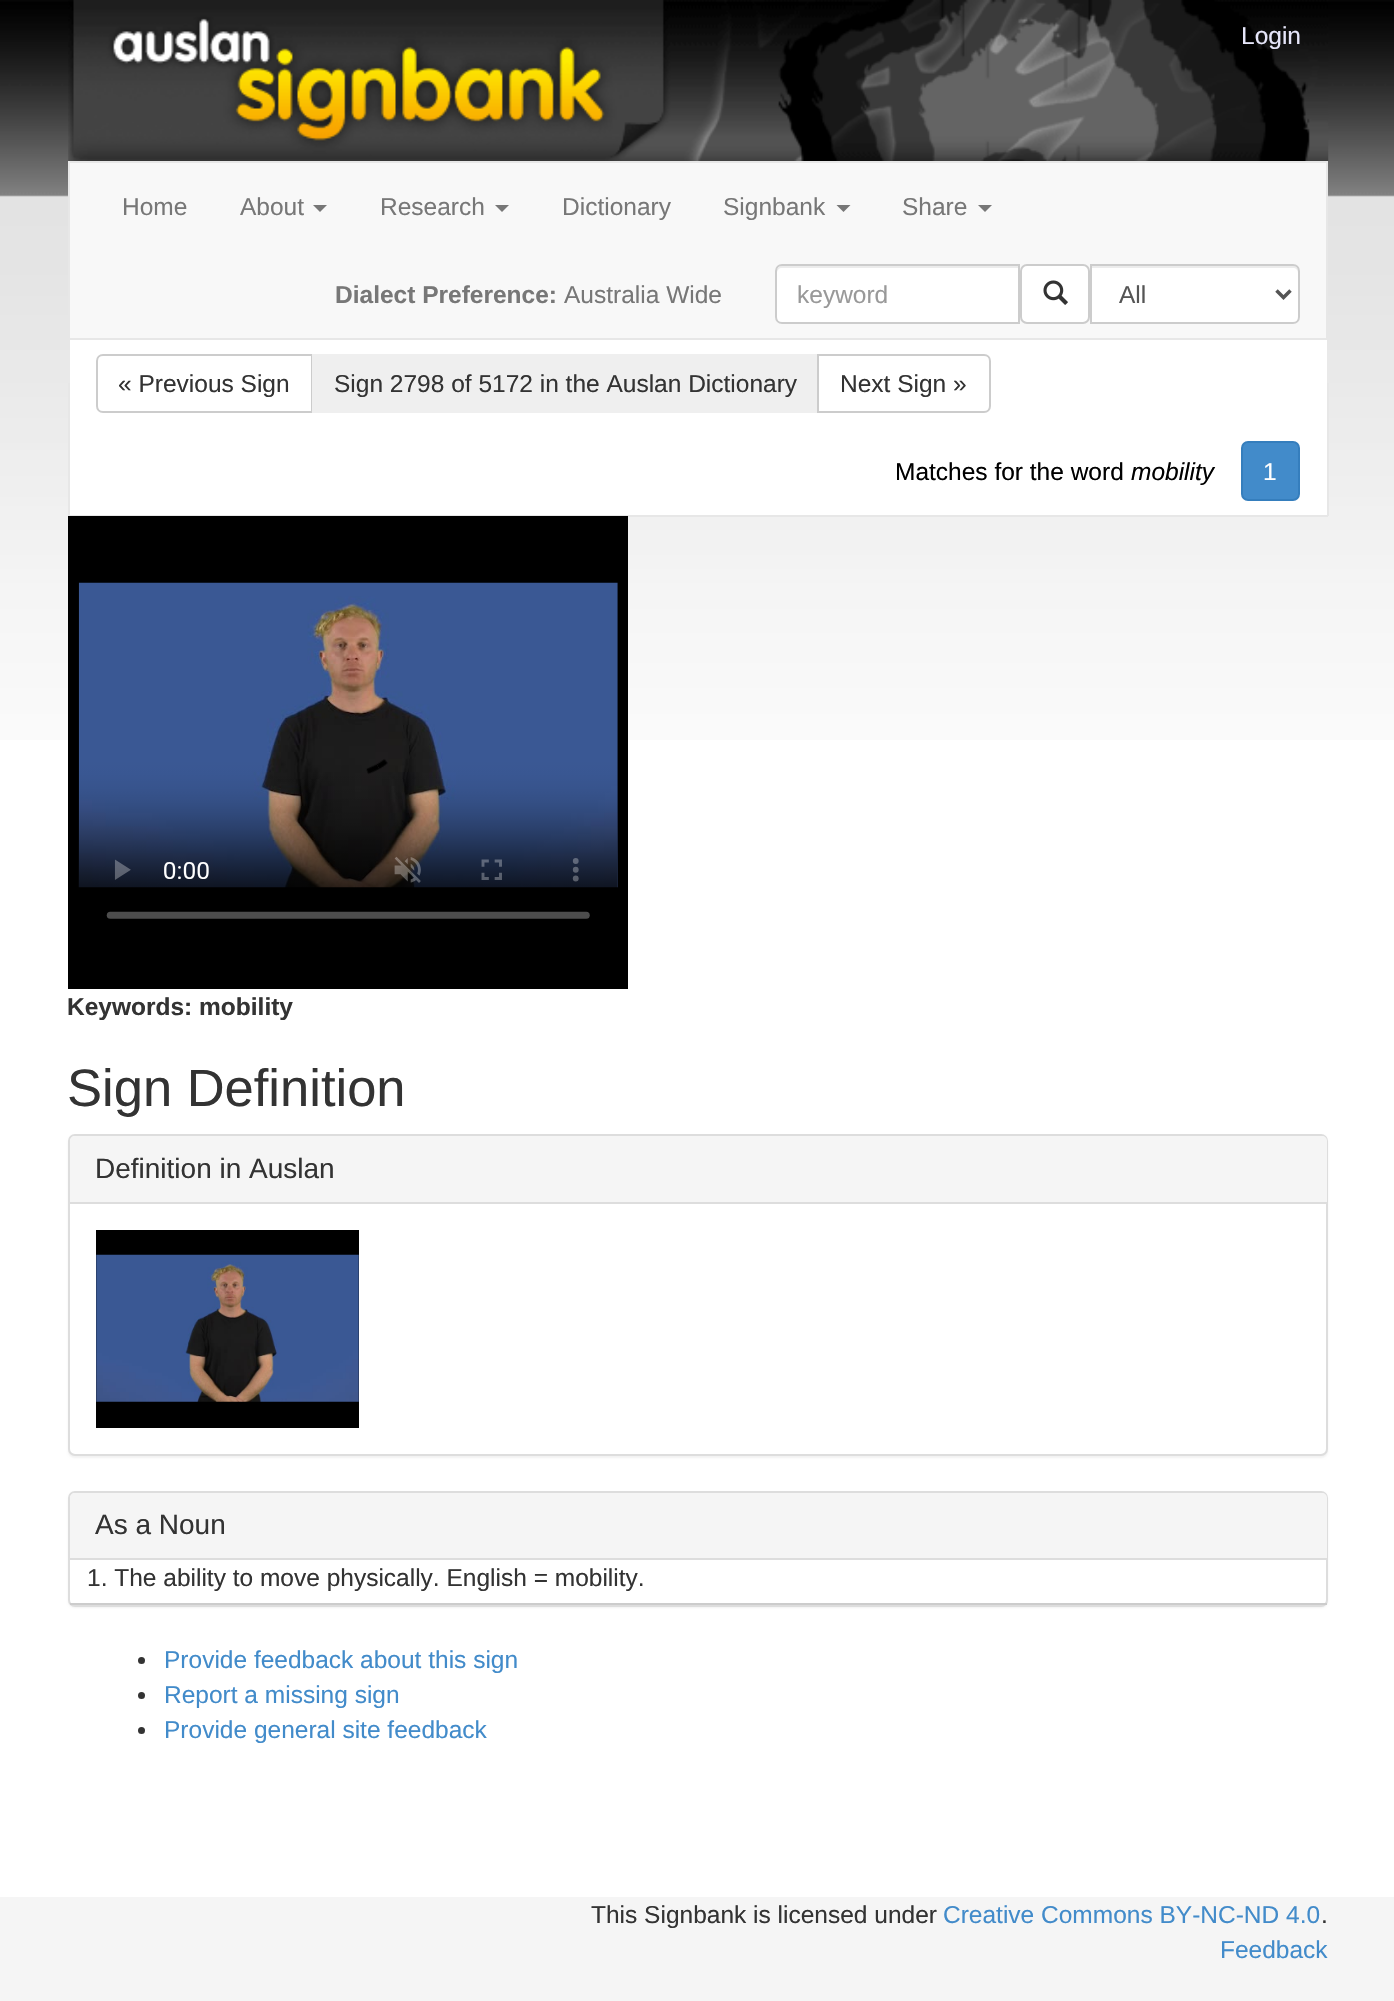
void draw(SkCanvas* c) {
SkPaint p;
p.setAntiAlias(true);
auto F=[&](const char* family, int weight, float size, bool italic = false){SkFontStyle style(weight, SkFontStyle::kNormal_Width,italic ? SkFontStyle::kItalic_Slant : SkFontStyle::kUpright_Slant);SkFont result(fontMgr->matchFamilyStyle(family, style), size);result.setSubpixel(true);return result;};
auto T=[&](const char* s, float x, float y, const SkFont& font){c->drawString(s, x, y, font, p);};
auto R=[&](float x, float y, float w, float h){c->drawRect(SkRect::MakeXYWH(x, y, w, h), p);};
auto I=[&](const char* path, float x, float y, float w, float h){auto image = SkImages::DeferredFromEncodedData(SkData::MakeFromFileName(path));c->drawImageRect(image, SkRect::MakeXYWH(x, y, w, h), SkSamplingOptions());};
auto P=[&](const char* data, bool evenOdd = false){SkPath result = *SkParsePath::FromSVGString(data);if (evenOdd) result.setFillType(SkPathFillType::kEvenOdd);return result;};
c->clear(0xffffffff);
I("1.png",0,0,1394,740);
I("2.png",68,0,1261,161);
auto f1 = F("Liberation Sans",400,24.5);
p.setColor(0xffe6e6fa);
T("Login",1241,44,f1);
p.setColor(0xfff8f8f8);
c->drawRect(SkRect::MakeXYWH(69,162,1258,177),p);
p.setStroke(true);
p.setStrokeWidth(2);
p.setColor(0xffe7e7e7);
c->drawRect(SkRect::MakeXYWH(69,162,1258,177),p);
p.setStroke(false);
p.setColor(0xff777777);
T("Home",122,215,f1);
T("About",240,215,f1);
c->drawPath(P("M313 205h14l-7 7z"),p);
T("Research",380,215,f1);
c->drawPath(P("M495 205h14l-7 7z"),p);
T("Dictionary",562,215,f1);
T("Signbank",723,215,f1);
c->drawPath(P("M836.5 205h14l-7 7z"),p);
T("Share",902,215,f1);
c->drawPath(P("M978 205h14l-7 7z"),p);
auto f2 = F("Liberation Sans",700,24.5);
T("Dialect Preference:",335,303,f2);
T("Australia Wide",564,303,f1);
p.setColor(0xffffffff);
c->drawPath(P("M782 264h238v60h-238c-4 0-7-3-7-7v-46c0-4 3-7 7-7z"),p);
p.setColor(0xffececec);
c->drawPath(P("M782 268h236v54h1v-56h-237c-3 0-5 2-5 5v2c0-3 2-5 5-5z"),p);
p.setStroke(true);
p.setColor(0xffcccccc);
c->drawPath(P("M782 265h237v58h-237c-3.5 0-6-2.5-6-6v-46c0-3.5 2.5-6 6-6z"),p);
p.setStroke(false);
p.setColor(0xff999999);
T("keyword",797,303,f1);
p.setColor(0xffffffff);
c->drawRoundRect(SkRect::MakeXYWH(1021,265,68,58),6,6,p);
p.setStroke(true);
p.setColor(0xffcccccc);
c->drawRoundRect(SkRect::MakeXYWH(1021,265,68,58),6,6,p);
I("3.png",1043,280,25,25);
p.setStroke(false);
p.setColor(0xffffffff);
c->drawPath(P("M1090 264h203c4 0 7 3 7 7v46c0 4-3 7-7 7h-203z"),p);
p.setColor(0xffececec);
c->drawPath(P("M1092 268h201c3 0 5 2 5 5v45v3c0-1 1-3 1-4v-46c0-3-2-5-5-5h-202z"),p);
p.setStroke(true);
p.setColor(0xffcccccc);
c->drawPath(P("M1091 265h202c3.5 0 6 2.5 6 6v46c0 3.5-2.5 6-6 6h-202z"),p);
p.setStrokeWidth(3.5);
p.setColor(0xff555555);
c->drawPath(P("M1276.5 290.5l7 7l7-7"),p);
p.setStroke(false);
T("All",1119,303,f1);
p.setColor(0xffffffff);
R(70,340,1257,175);
p.setColor(0xffe7e7e7);
R(1327,383,2,133);
R(68,515,1260,2);
R(68,383,2,133);
p.setStroke(true);
p.setStrokeWidth(2);
p.setColor(0xffcccccc);
c->drawPath(P("M103 355h209v57h-209c-3.5 0-6-2.5-6-6v-45c0-3.5 2.5-6 6-6z"),p);
p.setStroke(false);
p.setColor(0xff333333);
T("« Previous Sign",118,392,f1);
p.setColor(0xffefefef);
R(312,354,505,59);
p.setColor(0xff333333);
T("Sign 2798 of 5172 in the Auslan Dictionary",334,392,f1);
p.setStroke(true);
p.setColor(0xffcccccc);
c->drawPath(P("M818 355h166c3.5 0 6 2.5 6 6v45c0 3.5-2.5 6-6 6h-166z"),p);
p.setStroke(false);
p.setColor(0xff333333);
T("Next Sign »",840,392,f1);
p.setColor(0xff000000);
T("Matches for the word",895,480,f1);
auto f3 = F("Liberation Sans",400,24.5,true);
T("mobility",1131,480,f3);
p.setColor(0xff428bca);
c->drawRoundRect(SkRect::MakeXYWH(1242,442,57,58),6,6,p);
p.setStroke(true);
p.setColor(0xff357ebd);
c->drawRoundRect(SkRect::MakeXYWH(1242,442,57,58),6,6,p);
p.setStroke(false);
p.setColor(0xffffffff);
T("1",1263,480,f1);
p.setColor(0xff000000);
R(68,516,560,473);
I("4.png",78,582,540,337);
p.setColor(0xff333333);
T("Keywords: mobility",67,1015,f2);
auto f4 = F("Liberation Sans",400,52.5);
T("Sign Definition",67,1106,f4);
p.setColor(0x0d000000);
p.setMaskFilter(SkMaskFilter::MakeBlur(kNormal_SkBlurStyle, 1));
c->drawRoundRect(SkRect::MakeXYWH(68,1136,1260,322),7,7,p);
p.setMaskFilter(nullptr);
p.setColor(0xffffffff);
c->drawRoundRect(SkRect::MakeXYWH(69,1135,1258,320),6,6,p);
p.setStroke(true);
p.setColor(0xffdddddd);
c->drawRoundRect(SkRect::MakeXYWH(69,1135,1258,320),6,6,p);
p.setStroke(false);
p.setColor(0xfff5f5f5);
c->drawPath(P("M75 1136h1247c3 0 5 2 5 5v63h-1257v-63c0-3 2-5 5-5z"),p);
p.setColor(0xffdddddd);
R(70,1202,1257,2);
auto f5 = F("Liberation Sans",400,28);
p.setColor(0xff333333);
T("Definition in Auslan",95,1178,f5);
p.setColor(0xff000000);
R(96,1230,263,198);
I("5.png",96,1254,263,148);
p.setColor(0x0d000000);
p.setMaskFilter(SkMaskFilter::MakeBlur(kNormal_SkBlurStyle, 1));
c->drawRoundRect(SkRect::MakeXYWH(68,1493,1260,115),7,7,p);
p.setMaskFilter(nullptr);
p.setColor(0xffffffff);
c->drawRoundRect(SkRect::MakeXYWH(69,1492,1258,114),6,6,p);
p.setStroke(true);
p.setColor(0xffdddddd);
c->drawRoundRect(SkRect::MakeXYWH(69,1492,1258,114),6,6,p);
p.setStroke(false);
p.setColor(0xfff5f5f5);
c->drawPath(P("M75 1493h1247c3 0 5 2 5 5v61h-1257v-61c0-3 2-5 5-5z"),p);
p.setColor(0xffdddddd);
R(70,1558,1257,2);
p.setColor(0xff333333);
T("As a Noun",95,1534,f5);
p.setColor(0xffcccccc);
R(70,1603,1257,2);
p.setColor(0xff333333);
T("1. The ability to move physically. English = mobility.",87,1586,f1);
c->drawCircle(141.5,1660.5,3.5,p);
p.setColor(0xff428bca);
T("Provide feedback about this sign",164,1668,f1);
p.setColor(0xff333333);
c->drawCircle(141.5,1695.5,3.5,p);
p.setColor(0xff428bca);
T("Report a missing sign",164,1703,f1);
p.setColor(0xff333333);
c->drawCircle(141.5,1730.5,3.5,p);
p.setColor(0xff428bca);
T("Provide general site feedback",164,1738,f1);
p.setColor(0xfff5f5f5);
R(0,1897,1394,104);
p.setColor(0xff333333);
T("This Signbank is licensed under",591,1923,f1);
p.setColor(0xff428bca);
T("Creative Commons BY-NC-ND 4.0",943,1923,f1);
p.setColor(0xff333333);
T(".",1321,1923,f1);
p.setColor(0xff428bca);
T("Feedback",1220,1958,f1);
}
